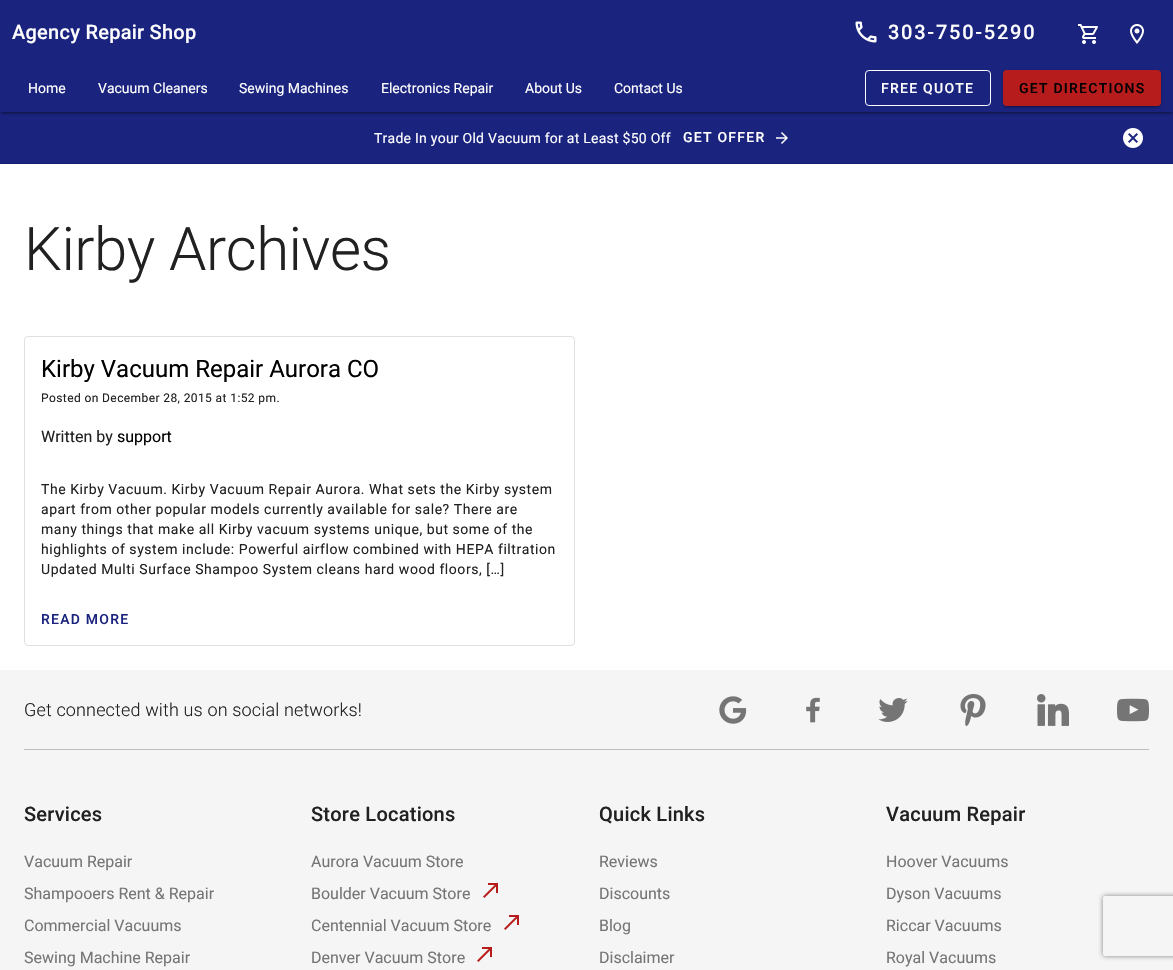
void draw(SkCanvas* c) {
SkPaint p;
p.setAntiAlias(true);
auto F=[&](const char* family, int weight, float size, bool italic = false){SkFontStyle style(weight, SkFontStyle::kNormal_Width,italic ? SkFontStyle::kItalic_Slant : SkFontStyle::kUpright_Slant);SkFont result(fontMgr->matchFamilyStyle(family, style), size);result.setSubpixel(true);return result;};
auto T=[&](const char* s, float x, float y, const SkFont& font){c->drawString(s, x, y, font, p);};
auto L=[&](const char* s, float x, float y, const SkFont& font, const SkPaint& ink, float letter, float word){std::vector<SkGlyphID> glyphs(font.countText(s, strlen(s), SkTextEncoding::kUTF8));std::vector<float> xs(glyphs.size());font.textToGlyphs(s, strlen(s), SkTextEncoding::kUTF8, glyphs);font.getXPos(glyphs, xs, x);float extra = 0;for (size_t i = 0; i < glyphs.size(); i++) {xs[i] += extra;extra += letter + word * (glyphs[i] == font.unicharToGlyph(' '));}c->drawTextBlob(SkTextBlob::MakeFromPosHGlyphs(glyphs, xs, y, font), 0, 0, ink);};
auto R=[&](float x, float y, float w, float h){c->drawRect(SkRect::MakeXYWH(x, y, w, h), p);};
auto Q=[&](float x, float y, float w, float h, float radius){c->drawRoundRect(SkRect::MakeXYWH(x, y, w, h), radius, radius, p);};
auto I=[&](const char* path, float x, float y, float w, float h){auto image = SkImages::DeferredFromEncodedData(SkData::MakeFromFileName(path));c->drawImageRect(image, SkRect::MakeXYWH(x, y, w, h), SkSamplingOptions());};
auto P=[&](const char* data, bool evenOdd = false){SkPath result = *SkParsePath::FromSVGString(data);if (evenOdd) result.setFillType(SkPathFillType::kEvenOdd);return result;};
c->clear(0xffffffff);
p.setColor(0xff1a237e);
R(0,112,1173,51);
p.setColor(0x1f000000);
p.setMaskFilter(SkMaskFilter::MakeBlur(kNormal_SkBlurStyle, 2.5));
c->drawRect(SkRect::MakeXYWH(0,1,1173,112),p);
p.setMaskFilter(nullptr);
p.setColor(0x24000000);
p.setMaskFilter(SkMaskFilter::MakeBlur(kNormal_SkBlurStyle, 1));
c->drawRect(SkRect::MakeXYWH(0,2,1173,112),p);
p.setMaskFilter(nullptr);
p.setColor(0x33000000);
p.setMaskFilter(SkMaskFilter::MakeBlur(kNormal_SkBlurStyle, .5));
c->drawRect(SkRect::MakeXYWH(2,5,1169,108),p);
p.setMaskFilter(nullptr);
p.setColor(0xff1a237e);
R(0,0,1173,112);
auto f1 = F("Roboto",500,20);
p.setColor(0xffffffff);
L("Agency Repair Shop",12,39,f1,p,.25,0);
I("1.png",855,21,22,22);
L("303-750-5290",888,39,f1,p,1.75,0);
I("2.png",1078,24,20,20);
I("3.png",1130,24,14,20);
auto f2 = F("Roboto",400,14);
T("Home",28,93,f2);
T("Vacuum Cleaners",98,93,f2);
T("Sewing Machines",239,93,f2);
T("Electronics Repair",381,93,f2);
T("About Us",525,93,f2);
T("Contact Us",614,93,f2);
p.setStroke(true);
p.setStrokeWidth(1);
c->drawRoundRect(SkRect::MakeXYWH(865.5,70.5,125,35),3.5,3.5,p);
auto f3 = F("Roboto",500,14);
p.setStroke(false);
L("FREE QUOTE",881,93,f3,p,1.25,0);
p.setColor(0x1f000000);
p.setMaskFilter(SkMaskFilter::MakeBlur(kNormal_SkBlurStyle, 2.5));
c->drawRoundRect(SkRect::MakeXYWH(1003,71,158,36),4,4,p);
p.setMaskFilter(nullptr);
p.setColor(0x24000000);
p.setMaskFilter(SkMaskFilter::MakeBlur(kNormal_SkBlurStyle, 1));
c->drawRoundRect(SkRect::MakeXYWH(1003,72,158,36),4,4,p);
p.setMaskFilter(nullptr);
p.setColor(0x33000000);
p.setMaskFilter(SkMaskFilter::MakeBlur(kNormal_SkBlurStyle, .5));
c->drawRoundRect(SkRect::MakeXYWH(1005,75,154,32),2,2,p);
p.setMaskFilter(nullptr);
p.setColor(0xffb71c1c);
Q(1003,70,158,36,4);
p.setColor(0xff000000);
L("GET DIRECTIONS",1019,93,f3,p,1.25,0);
p.setColor(0xff171f6f);
R(0,163,1173,1);
p.setColor(0xffffffff);
L("Trade In your Old Vacuum for at Least $50 Off",374,143,f2,p,.25,0);
L("GET OFFER",683,142,f3,p,1.25,0);
I("4.png",776,132,12,12);
I("5.png",1123,128,20,20);
auto f4 = F("Roboto",300,60);
p.setColor(0xff212121);
L("Kirby Archives",24,270,f4,p,-.5,0);
p.setStroke(true);
p.setColor(0xffe0e0e0);
c->drawRoundRect(SkRect::MakeXYWH(24.5,336.5,550,309),3.5,3.5,p);
auto f5 = F("Roboto",400,24);
p.setStroke(false);
p.setColor(0xff000000);
T("Kirby Vacuum Repair Aurora CO",41,377,f5);
auto f6 = F("Roboto",400,12);
p.setColor(0xff212121);
L("Posted on December 28, 2015 at 1:52 pm.",41,402,f6,p,.4,0);
auto f7 = F("Roboto",400,16);
T("Written by",41,442,f7);
p.setColor(0xff000000);
T("support",117,442,f7);
p.setColor(0xff212121);
L("The Kirby Vacuum. Kirby Vacuum Repair Aurora. What sets the Kirby system",41,494,f2,p,.55,0);
L("apart from other popular models currently available for sale? There are",41,514,f2,p,.55,0);
L("many things that make all Kirby vacuum systems unique, but some of the",41,534,f2,p,.55,0);
L("highlights of system include: Powerful airflow combined with HEPA filtration",41,554,f2,p,.55,0);
L("Updated Multi Surface Shampoo System cleans hard wood floors, […]",41,574,f2,p,.55,0);
p.setColor(0xff1a237e);
L("READ MORE",41,624,f3,p,1.25,0);
p.setColor(0xfff5f5f5);
R(0,670,1173,300);
p.setColor(0xffbdbdbd);
R(24,749,1125,1);
auto f8 = F("Roboto",300,18);
p.setColor(0xff212121);
L("Get connected with us on social networks!",24,716,f8,p,.15,0);
I("6.png",719,696,28,28);
I("7.png",806,697,14,26);
I("8.png",878,698,30,24);
I("9.png",960,694,26,32);
I("10.png",1037,694,32,32);
I("11.png",1117,698,32,24);
L("Services",24,821,f1,p,.25,0);
p.setColor(0xff757575);
T("Vacuum Repair",24,867,f7);
T("Shampooers Rent & Repair",24,899,f7);
T("Commercial Vacuums",24,931,f7);
T("Sewing Machine Repair",24,963,f7);
p.setColor(0xff212121);
L("Store Locations",311,821,f1,p,.25,0);
p.setColor(0xff757575);
T("Aurora Vacuum Store",311,867,f7);
T("Boulder Vacuum Store",311,899,f7);
I("12.png",483,883,15,15);
T("Centennial Vacuum Store",311,931,f7);
I("12.png",504,915,15,15);
T("Denver Vacuum Store",311,963,f7);
I("12.png",477,947,15,15);
p.setColor(0xff212121);
L("Quick Links",599,821,f1,p,.25,0);
p.setColor(0xff757575);
T("Reviews",599,867,f7);
T("Discounts",599,899,f7);
T("Blog",599,931,f7);
T("Disclaimer",599,963,f7);
p.setColor(0xff212121);
L("Vacuum Repair",886,821,f1,p,.25,0);
p.setColor(0xff757575);
T("Hoover Vacuums",886,867,f7);
T("Dyson Vacuums",886,899,f7);
T("Riccar Vacuums",886,931,f7);
T("Royal Vacuums",886,963,f7);
c->save();
c->clipPath(P("M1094 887h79v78h-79zm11 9h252c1 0 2 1 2 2v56c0 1-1 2-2 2h-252c-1 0-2-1-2-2v-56c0-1 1-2 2-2z",true),true);
p.setColor(0xff808080);
p.setMaskFilter(SkMaskFilter::MakeBlur(kNormal_SkBlurStyle, 2.5));
c->drawRoundRect(SkRect::MakeXYWH(1103,896,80,60),2,2,p);
p.setMaskFilter(nullptr);
c->restore();
}
